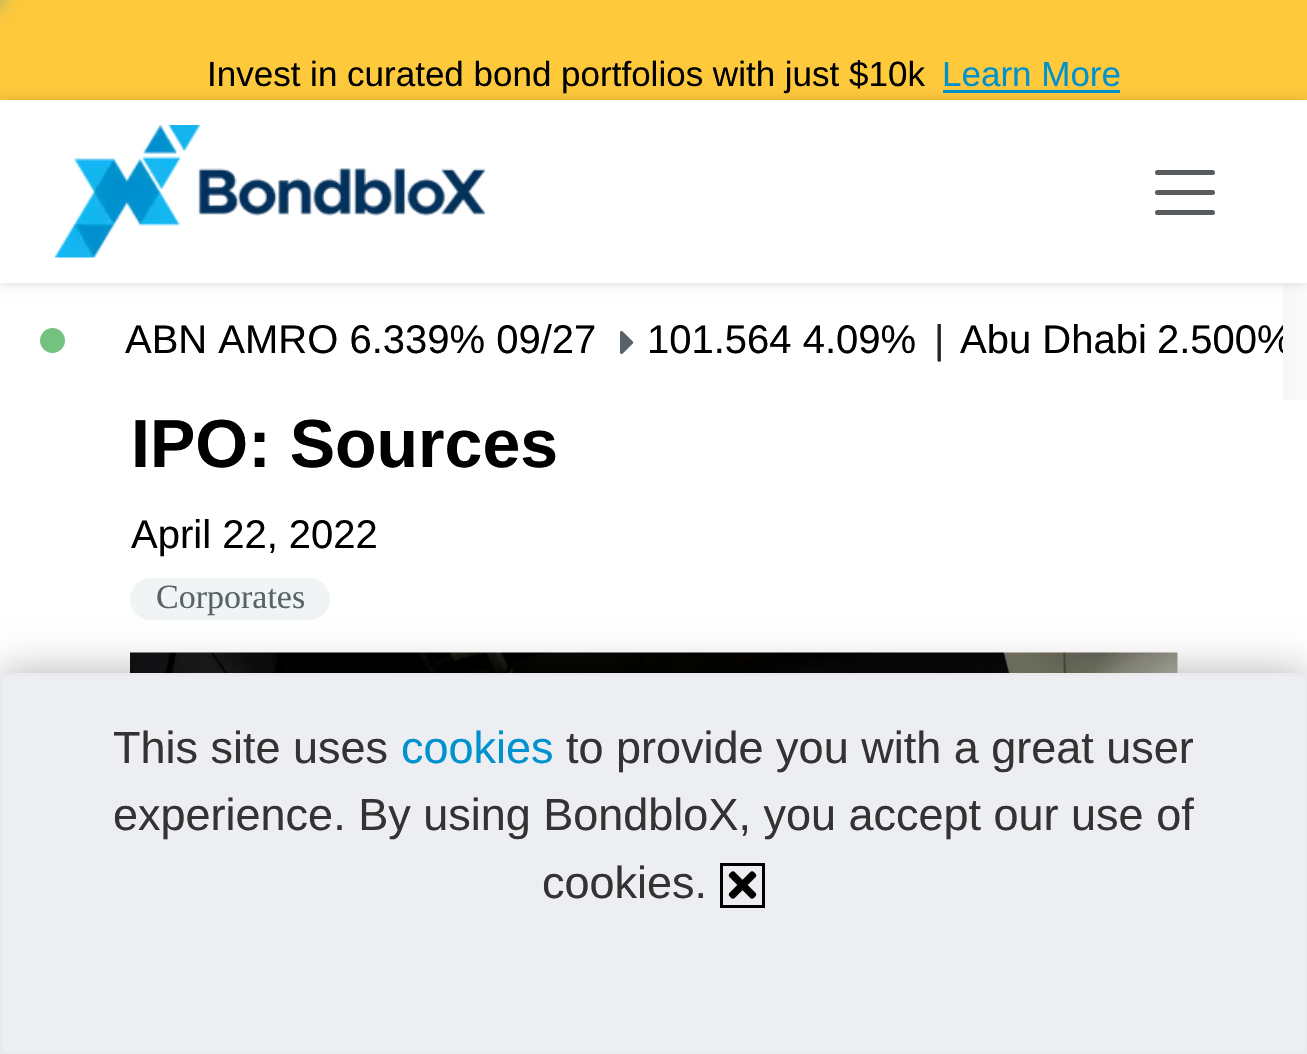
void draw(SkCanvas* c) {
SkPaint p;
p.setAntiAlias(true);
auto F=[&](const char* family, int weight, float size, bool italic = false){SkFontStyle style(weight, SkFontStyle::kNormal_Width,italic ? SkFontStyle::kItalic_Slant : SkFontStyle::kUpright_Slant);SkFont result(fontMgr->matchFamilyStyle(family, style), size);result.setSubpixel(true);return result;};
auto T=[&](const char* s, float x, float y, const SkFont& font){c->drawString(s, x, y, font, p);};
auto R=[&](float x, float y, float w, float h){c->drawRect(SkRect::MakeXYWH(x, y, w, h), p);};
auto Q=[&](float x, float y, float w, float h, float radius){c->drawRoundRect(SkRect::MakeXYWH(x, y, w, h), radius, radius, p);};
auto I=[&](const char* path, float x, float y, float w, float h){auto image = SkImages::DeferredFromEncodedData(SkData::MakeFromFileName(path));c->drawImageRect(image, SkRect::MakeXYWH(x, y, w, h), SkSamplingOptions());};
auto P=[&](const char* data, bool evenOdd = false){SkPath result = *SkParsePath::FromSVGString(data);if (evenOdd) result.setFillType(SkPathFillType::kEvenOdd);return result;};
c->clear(0xffffffff);
p.setColor(0xffffc93c);
R(0,0,1307,100);
p.setColor(0xff0091cf);
p.setMaskFilter(SkMaskFilter::MakeBlur(kNormal_SkBlurStyle, 12.5));
c->drawRect(SkRect::MakeXYWH(-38,-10,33,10),p);
p.setMaskFilter(nullptr);
p.setMaskFilter(SkMaskFilter::MakeBlur(kNormal_SkBlurStyle, 12.5));
c->drawRect(SkRect::MakeXYWH(-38,-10,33,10),p);
p.setMaskFilter(nullptr);
auto f1 = F("Liberation Sans",400,35);
p.setColor(0xff000000);
T("Invest in curated bond portfolios with just $10k",207,86,f1);
p.setColor(0xff0091cf);
T("Learn More",942,86,f1);
R(943,90,177,3);
c->save();
c->clipRect(SkRect::MakeXYWH(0,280,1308,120));
p.setColor(0x33cccccc);
p.setMaskFilter(SkMaskFilter::MakeBlur(kNormal_SkBlurStyle, 19));
c->drawRect(SkRect::MakeXYWH(-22,283,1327,165),p);
p.setMaskFilter(nullptr);
c->restore();
p.setColor(0xffffffff);
R(0,283,1283,117);
p.setColor(0x26000000);
p.setMaskFilter(SkMaskFilter::MakeBlur(kNormal_SkBlurStyle, 6));
c->drawRect(SkRect::MakeXYWH(0,100,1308,183),p);
p.setMaskFilter(nullptr);
p.setColor(0xffffffff);
R(0,100,1307,183);
I("1.png",55,125,430,133);
p.setStroke(true);
p.setStrokeWidth(5);
p.setStrokeCap(SkPaint::kRound_Cap);
p.setColor(0xff595c5f);
c->drawPath(P("M1157.5 172.5h55m-55 20h55m-55 20h55"),p);
p.setStroke(false);
p.setColor(0xff73c280);
c->drawCircle(52.5,340.5,12.5,p);
auto f2 = F("Liberation Sans",400,40);
p.setColor(0xff000000);
T("ABN AMRO 6.339% 09/27",125,353,f2);
I("2.png",620,330,14,25);
T("101.564 4.09%",647,353,f2);
p.setColor(0xff212529);
T("|",934,353,f2);
p.setColor(0xff000000);
T("Abu Dhabi",960,353,f2);
c->save();
c->clipRect(SkRect::MakeXYWH(125,285,1158,110));
T("2.500%",1157,353,f2);
c->restore();
p.setColor(0xfff1f4f4);
Q(130,578,200,42,21);
I("4.png",130,652,1048,21);
p.setColor(0x4d000000);
p.setMaskFilter(SkMaskFilter::MakeBlur(kNormal_SkBlurStyle, 20));
c->drawRect(SkRect::MakeXYWH(0,673,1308,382),p);
p.setMaskFilter(nullptr);
p.setColor(0xffedeef2);
c->drawRect(SkRect::MakeXYWH(1.5,674.5,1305,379),p);
p.setStroke(true);
p.setStrokeWidth(3);
p.setStrokeCap(SkPaint::kButt_Cap);
p.setColor(0xffe8eaed);
c->drawRect(SkRect::MakeXYWH(1.5,674.5,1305,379),p);
auto f3 = F("Liberation Sans",400,45);
p.setStroke(false);
p.setColor(0xff333333);
T("This site uses",113,763,f3);
p.setColor(0xff0091cf);
T("cookies",401,763,f3);
p.setColor(0xff333333);
T("to provide you with a great user",566,763,f3);
T("experience. By using BondbloX, you accept our use of",113,830,f3);
T("cookies.",542,898,f3);
p.setStroke(true);
p.setColor(0xff000000);
c->drawRect(SkRect::MakeXYWH(721.5,864.5,42,42),p);
I("3.png",728,871,29,28);
auto f4 = F("Liberation Sans",700,68);
p.setStroke(false);
T("IPO: Sources",131,467,f4);
T("April 22, 2022",131,548,f2);
auto f5 = F("Liberation Serif",400,34);
p.setColor(0xff596367);
T("Corporates",156,608,f5);
}
